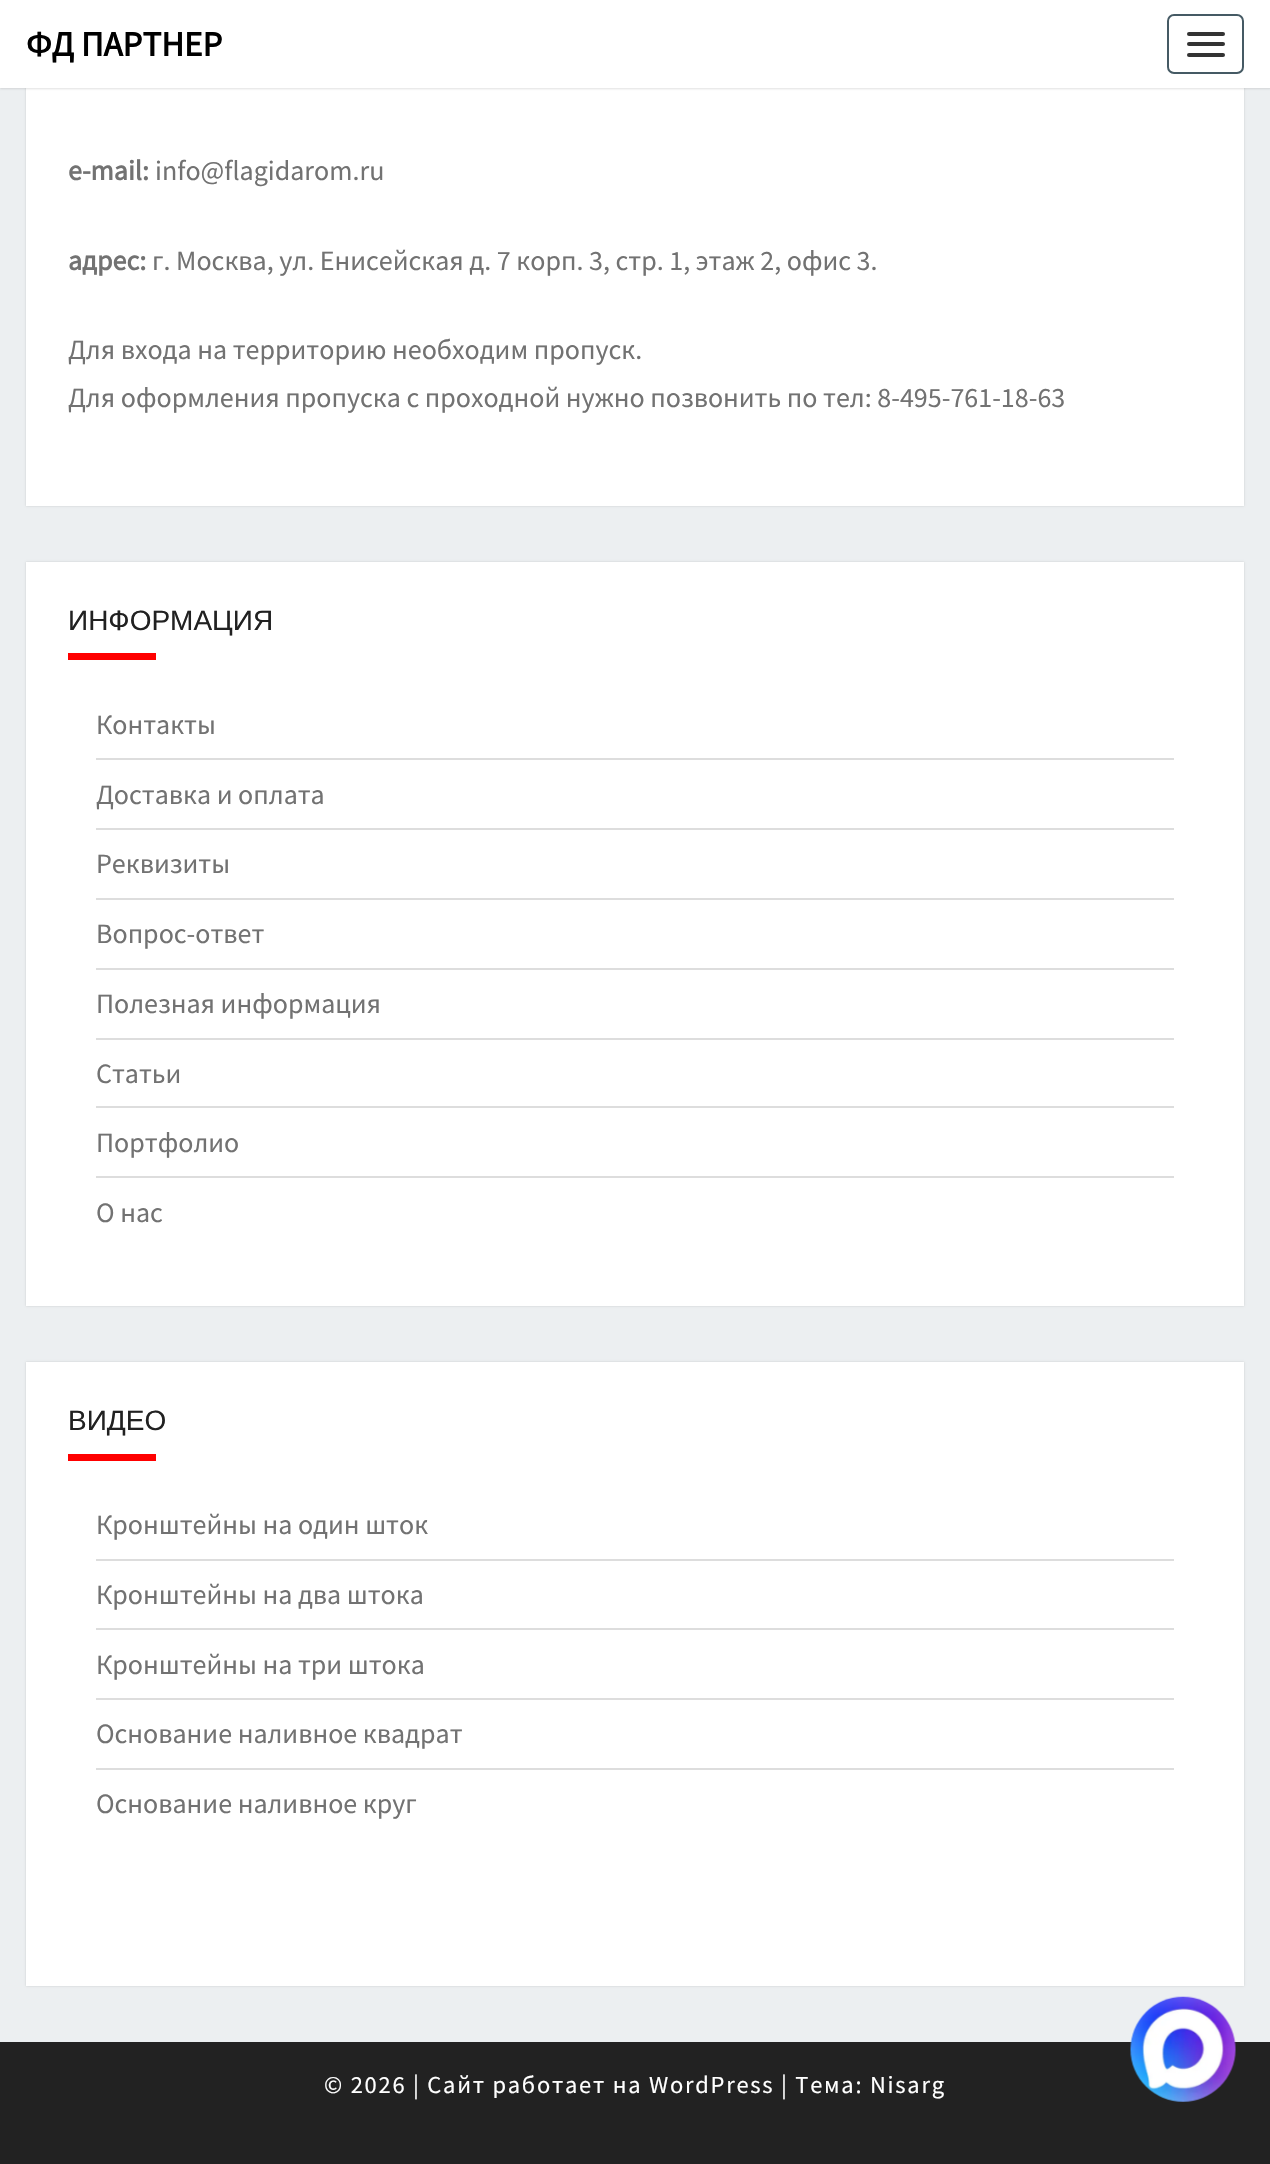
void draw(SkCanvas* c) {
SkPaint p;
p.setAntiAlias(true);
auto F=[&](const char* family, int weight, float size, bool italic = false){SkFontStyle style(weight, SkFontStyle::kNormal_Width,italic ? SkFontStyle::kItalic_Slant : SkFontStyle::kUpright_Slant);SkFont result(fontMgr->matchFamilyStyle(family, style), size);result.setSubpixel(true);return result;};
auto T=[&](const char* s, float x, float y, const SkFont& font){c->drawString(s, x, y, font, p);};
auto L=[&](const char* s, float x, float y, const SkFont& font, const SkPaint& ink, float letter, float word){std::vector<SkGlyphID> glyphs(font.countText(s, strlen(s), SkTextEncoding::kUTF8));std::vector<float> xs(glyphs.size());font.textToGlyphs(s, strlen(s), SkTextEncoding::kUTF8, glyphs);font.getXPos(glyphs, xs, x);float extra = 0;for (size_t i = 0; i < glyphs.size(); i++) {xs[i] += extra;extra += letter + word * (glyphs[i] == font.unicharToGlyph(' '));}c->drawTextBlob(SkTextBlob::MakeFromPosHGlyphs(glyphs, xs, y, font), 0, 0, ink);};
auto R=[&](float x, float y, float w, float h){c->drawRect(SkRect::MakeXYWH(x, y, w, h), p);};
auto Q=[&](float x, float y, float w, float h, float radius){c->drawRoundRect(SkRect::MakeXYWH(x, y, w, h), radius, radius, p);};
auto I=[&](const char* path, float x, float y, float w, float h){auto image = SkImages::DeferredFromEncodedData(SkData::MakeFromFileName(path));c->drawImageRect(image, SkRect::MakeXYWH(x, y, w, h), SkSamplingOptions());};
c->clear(0xffeceff1);
p.setColor(0x26000000);
p.setMaskFilter(SkMaskFilter::MakeBlur(kNormal_SkBlurStyle, 1));
c->drawRect(SkRect::MakeXYWH(26,-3,1218,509),p);
p.setMaskFilter(nullptr);
p.setColor(0xffffffff);
R(26,88,1218,418);
p.setColor(0x33646464);
p.setMaskFilter(SkMaskFilter::MakeBlur(kNormal_SkBlurStyle, 1));
c->drawRect(SkRect::MakeXYWH(0,2,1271,87),p);
p.setMaskFilter(nullptr);
p.setColor(0xffffffff);
R(0,0,1270,88);
auto f1 = F("Source Sans Pro",700,35);
p.setColor(0xff000000);
T("ФД ПАРТНЕР",26,56,f1);
p.setStroke(true);
p.setStrokeWidth(2);
p.setColor(0xff455a64);
c->drawRoundRect(SkRect::MakeXYWH(1168,15,75,58),6,6,p);
p.setStroke(false);
p.setColor(0xff333333);
Q(1187,32,38,4,2);
Q(1187,42,38,4,2);
Q(1187,53,38,4,2);
auto f2 = F("Source Sans Pro",700,28);
p.setColor(0xff727272);
T("e-mail:",68,180,f2);
auto f3 = F("Source Sans Pro",400,28);
T("info@flagidarom.ru",155,180,f3);
T("адрес:",68,270,f2);
T("г. Москва, ул. Енисейская д. 7 корп. 3, стр. 1, этаж 2, офис 3.",152,270,f3);
T("Для входа на территорию необходим пропуск.",68,359,f3);
T("Для оформления пропуска с проходной нужно позвонить по тел: 8-495-761-18-63",68,407,f3);
p.setColor(0x26000000);
p.setMaskFilter(SkMaskFilter::MakeBlur(kNormal_SkBlurStyle, 1));
c->drawRect(SkRect::MakeXYWH(26,562,1218,744),p);
p.setMaskFilter(nullptr);
p.setColor(0xffffffff);
R(26,562,1218,744);
auto f4 = F("Liberation Sans",400,28);
p.setColor(0xff212121);
T("ИНФОРМАЦИЯ",68,630,f4);
p.setColor(0xffff0000);
R(68,653,88,7);
p.setColor(0xffdddddd);
R(96,758,1078,2);
p.setColor(0xff727272);
T("Контакты",96,734,f3);
p.setColor(0xffdddddd);
R(96,828,1078,2);
p.setColor(0xff727272);
T("Доставка и оплата",96,804,f3);
p.setColor(0xffdddddd);
R(96,898,1078,2);
p.setColor(0xff727272);
T("Реквизиты",96,873,f3);
p.setColor(0xffdddddd);
R(96,968,1078,2);
p.setColor(0xff727272);
T("Вопрос-ответ",96,943,f3);
p.setColor(0xffdddddd);
R(96,1038,1078,2);
p.setColor(0xff727272);
T("Полезная информация",96,1013,f3);
p.setColor(0xffdddddd);
R(96,1106,1078,2);
p.setColor(0xff727272);
T("Статьи",96,1083,f3);
p.setColor(0xffdddddd);
R(96,1176,1078,2);
p.setColor(0xff727272);
T("Портфолио",96,1152,f3);
T("О нас",96,1222,f3);
p.setColor(0x26000000);
p.setMaskFilter(SkMaskFilter::MakeBlur(kNormal_SkBlurStyle, 1));
c->drawRect(SkRect::MakeXYWH(26,1362,1218,624),p);
p.setMaskFilter(nullptr);
p.setColor(0xffffffff);
R(26,1362,1218,624);
p.setColor(0xff212121);
T("ВИДЕО",68,1430,f4);
p.setColor(0xffff0000);
R(68,1454,88,7);
p.setColor(0xffdddddd);
R(96,1559,1078,2);
p.setColor(0xff727272);
T("Кронштейны на один шток",96,1534,f3);
p.setColor(0xffdddddd);
R(96,1628,1078,2);
p.setColor(0xff727272);
T("Кронштейны на два штока",96,1604,f3);
p.setColor(0xffdddddd);
R(96,1698,1078,2);
p.setColor(0xff727272);
T("Кронштейны на три штока",96,1674,f3);
p.setColor(0xffdddddd);
R(96,1768,1078,2);
p.setColor(0xff727272);
T("Основание наливное квадрат",96,1743,f3);
T("Основание наливное круг",96,1813,f3);
p.setColor(0xff222222);
R(0,2042,1270,122);
auto f5 = F("Source Sans Pro",400,24.5);
p.setColor(0xffffffff);
L("© 2026 | Сайт работает на WordPress | Тема: Nisarg",324,2093,f5,p,1.75,0);
I("1.png",1130,1996,106,106);
}
